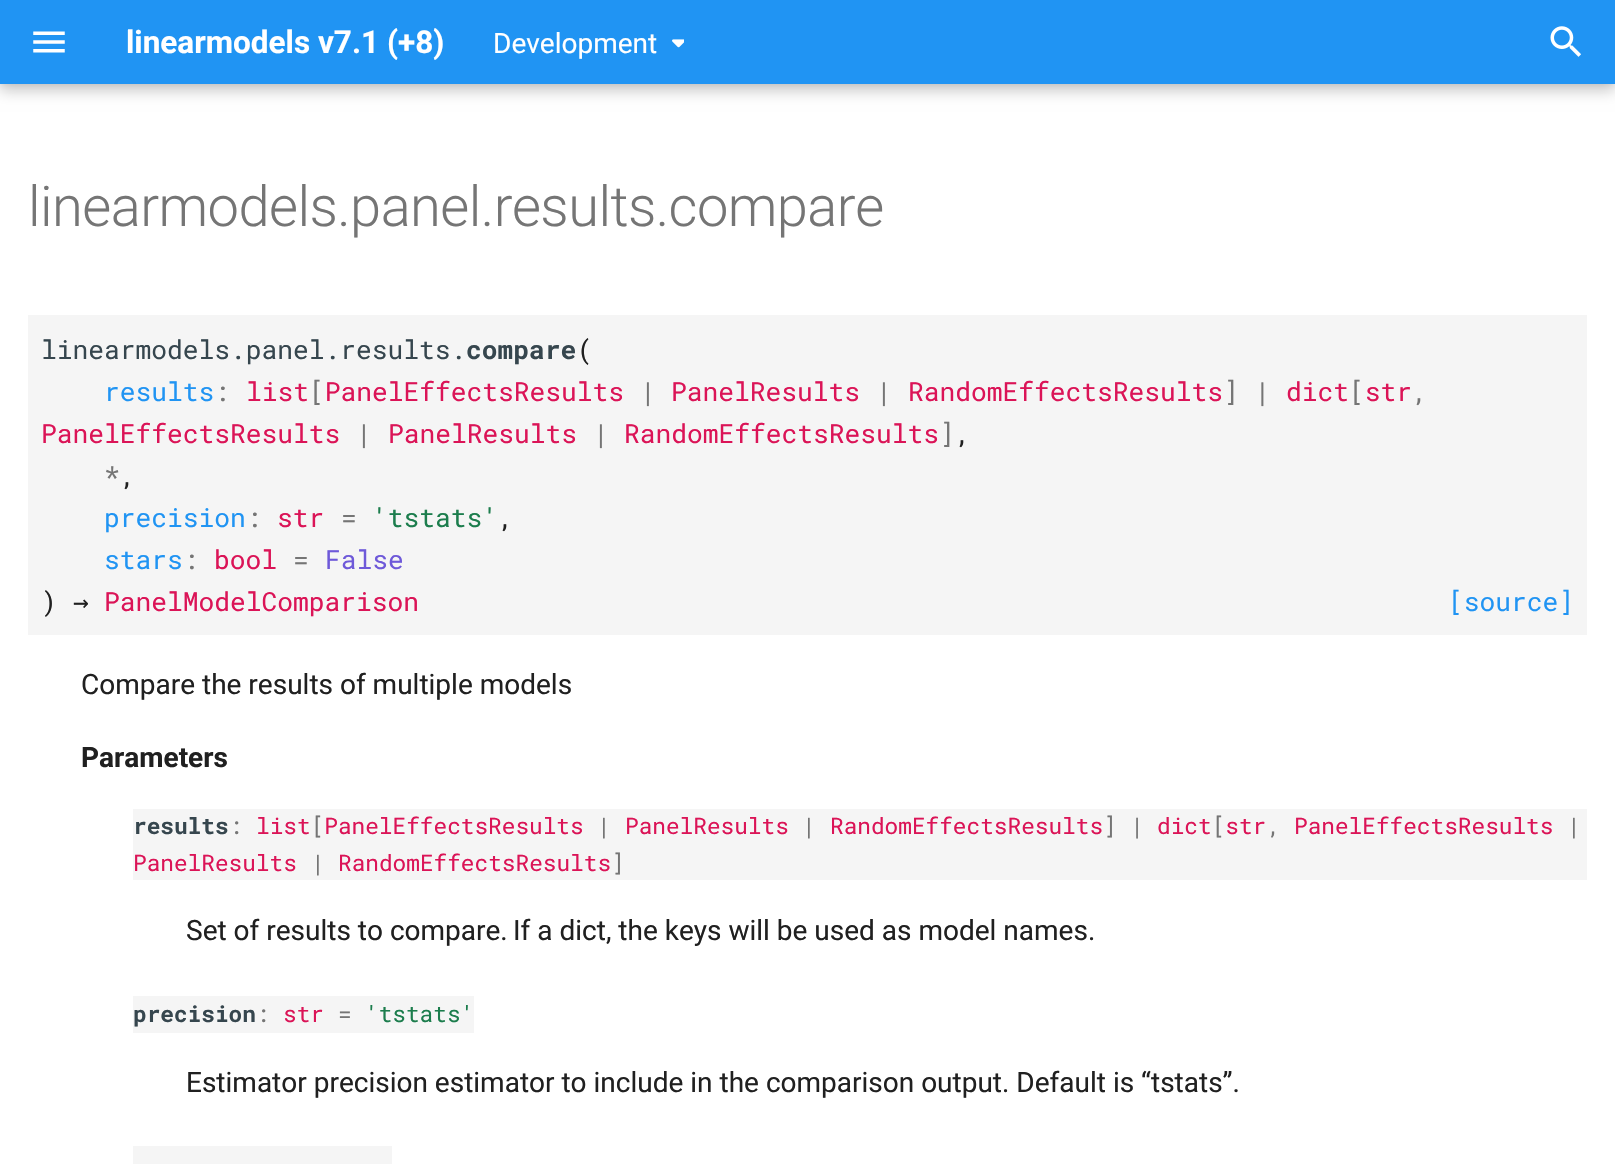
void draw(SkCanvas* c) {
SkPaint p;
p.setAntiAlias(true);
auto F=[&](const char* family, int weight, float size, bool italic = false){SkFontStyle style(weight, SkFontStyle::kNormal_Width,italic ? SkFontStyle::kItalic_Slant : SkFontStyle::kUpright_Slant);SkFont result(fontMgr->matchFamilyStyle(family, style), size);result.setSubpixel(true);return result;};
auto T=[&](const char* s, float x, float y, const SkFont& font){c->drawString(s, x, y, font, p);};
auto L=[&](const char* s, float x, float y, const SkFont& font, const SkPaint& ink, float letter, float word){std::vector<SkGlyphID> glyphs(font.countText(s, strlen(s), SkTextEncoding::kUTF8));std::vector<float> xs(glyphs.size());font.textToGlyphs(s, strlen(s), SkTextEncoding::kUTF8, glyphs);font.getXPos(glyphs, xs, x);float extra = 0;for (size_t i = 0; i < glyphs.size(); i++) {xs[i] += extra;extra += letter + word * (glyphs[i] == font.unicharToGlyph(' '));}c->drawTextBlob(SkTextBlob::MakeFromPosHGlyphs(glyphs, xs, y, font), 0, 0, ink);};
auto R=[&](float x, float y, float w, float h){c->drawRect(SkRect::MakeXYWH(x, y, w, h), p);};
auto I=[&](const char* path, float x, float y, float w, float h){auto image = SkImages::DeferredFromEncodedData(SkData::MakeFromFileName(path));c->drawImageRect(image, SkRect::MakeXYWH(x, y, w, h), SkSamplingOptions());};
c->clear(0xffffffff);
p.setColor(0x33000000);
p.setMaskFilter(SkMaskFilter::MakeBlur(kNormal_SkBlurStyle, 7));
c->drawRect(SkRect::MakeXYWH(0,7,1615,84),p);
p.setMaskFilter(nullptr);
p.setColor(0x1a000000);
p.setMaskFilter(SkMaskFilter::MakeBlur(kNormal_SkBlurStyle, 3.5));
c->drawRect(SkRect::MakeXYWH(0,0,1615,84),p);
p.setMaskFilter(nullptr);
p.setColor(0xff2094f3);
R(0,0,1615,84);
I("1.png",33,31,32,22);
auto f1 = F("Roboto",700,31.5);
p.setColor(0xffffffff);
T("linearmodels v7.1 (+8)",126,53,f1);
auto f2 = F("Roboto",400,28);
T("Development",493,53,f2);
I("2.png",672,39,12,9);
I("3.png",1550,26,31,31);
auto f3 = F("Roboto",300,56);
p.setColor(0xff757575);
L("linearmodels.panel.results.compare",28,226,f3,p,-.55,0);
p.setColor(0xfff5f5f5);
R(28,315,1559,320);
auto f4 = F("Roboto Mono",400,26.25);
p.setColor(0xff36464e);
T("linearmodels.panel.results.",41,359,f4);
auto f5 = F("Roboto Mono",700,26.25);
T("compare",466,359,f5);
p.setColor(0xff202020);
T("(",577,359,f4);
p.setColor(0xffdb1457);
T("list PanelEffectsResults",246,401,f4);
p.setColor(0xff757575);
T("[",309,401,f4);
T("] |",1223,401,f4);
p.setColor(0xffdb1457);
T("dict str",1286,401,f4);
p.setColor(0xff757575);
T("[",1349,401,f4);
p.setColor(0xff2094f3);
T("results",104,401,f4);
p.setColor(0xff757575);
T(":",214,401,f4);
T("|",640,401,f4);
p.setColor(0xffdb1457);
T("PanelResults",671,401,f4);
p.setColor(0xff757575);
T("|",876,401,f4);
p.setColor(0xffdb1457);
T("RandomEffectsResults",908,401,f4);
p.setColor(0xff757575);
T(",",1412,401,f4);
p.setColor(0xffdb1457);
T("PanelEffectsResults",41,443,f4);
p.setColor(0xff757575);
T("|",356,443,f4);
p.setColor(0xffdb1457);
T("PanelResults",388,443,f4);
p.setColor(0xff757575);
T("|",593,443,f4);
p.setColor(0xffdb1457);
T("RandomEffectsResults",624,443,f4);
p.setColor(0xff757575);
T("]",939,443,f4);
p.setColor(0xff202020);
T(",",955,443,f4);
p.setColor(0xff757575);
T("*",104,485,f4);
p.setColor(0xff202020);
T(",",120,485,f4);
p.setColor(0xff2094f3);
T("precision",104,527,f4);
p.setColor(0xff757575);
T(":",246,527,f4);
p.setColor(0xffdb1457);
T("str",277,527,f4);
p.setColor(0xff757575);
T("=",341,527,f4);
p.setColor(0xff1c7d4d);
T("'tstats'",372,527,f4);
p.setColor(0xff202020);
T(",",498,527,f4);
p.setColor(0xff2094f3);
T("stars",104,569,f4);
p.setColor(0xff757575);
T(":",183,569,f4);
p.setColor(0xffdb1457);
T("bool",214,569,f4);
p.setColor(0xff757575);
T("=",293,569,f4);
p.setColor(0xff6e59d9);
T("False",325,569,f4);
p.setColor(0xff202020);
T(")",41,611,f4);
auto f6 = F("DejaVu Sans Mono",400,26.25);
T("→",73,611,f6);
p.setColor(0xffdb1457);
T("PanelModelComparison",104,611,f4);
p.setColor(0xff2094f3);
T("[source]",1448,611,f4);
p.setColor(0xff202020);
T("Compare the results of multiple models",81,694,f2);
auto f7 = F("Roboto",700,28);
T("Parameters",81,767,f7);
p.setColor(0xfff5f5f5);
R(133,809,1454,71);
auto f8 = F("Roboto Mono",700,22.75);
p.setColor(0xff36464e);
T("results",133,834,f8);
auto f9 = F("Roboto Mono",400,22.75);
p.setColor(0xffdb1457);
T("list PanelEffectsResults",256,834,f9);
p.setColor(0xff757575);
T("[",311,834,f9);
T("] |",1103,834,f9);
p.setColor(0xffdb1457);
T("dict str",1157,834,f9);
p.setColor(0xff757575);
T("[",1212,834,f9);
T(":",229,834,f9);
T("|",597,834,f9);
p.setColor(0xffdb1457);
T("PanelResults",625,834,f9);
p.setColor(0xff757575);
T("|",802,834,f9);
p.setColor(0xffdb1457);
T("RandomEffectsResults",830,834,f9);
p.setColor(0xff757575);
T(",",1267,834,f9);
p.setColor(0xffdb1457);
T("PanelEffectsResults",1294,834,f9);
p.setColor(0xff757575);
T("|",1567,834,f9);
p.setColor(0xffdb1457);
T("PanelResults",133,871,f9);
p.setColor(0xff757575);
T("|",311,871,f9);
p.setColor(0xffdb1457);
T("RandomEffectsResults",338,871,f9);
p.setColor(0xff757575);
T("]",611,871,f9);
p.setColor(0xff202020);
T("Set of results to compare.",186,940,f2);
T("If a dict, the keys will be used as model names.",513,940,f2);
p.setColor(0xfff5f5f5);
R(133,996,341,37);
p.setColor(0xff36464e);
T("precision",133,1022,f8);
p.setColor(0xff757575);
T(":",256,1022,f9);
p.setColor(0xffdb1457);
T("str",283,1022,f9);
p.setColor(0xff757575);
T("=",338,1022,f9);
p.setColor(0xff1c7d4d);
T("'tstats'",365,1022,f9);
p.setColor(0xff202020);
T("Estimator precision estimator to include in the comparison output. Default is “tstats”.",186,1092,f2);
p.setColor(0xfff5f5f5);
R(133,1146,259,18);
}
